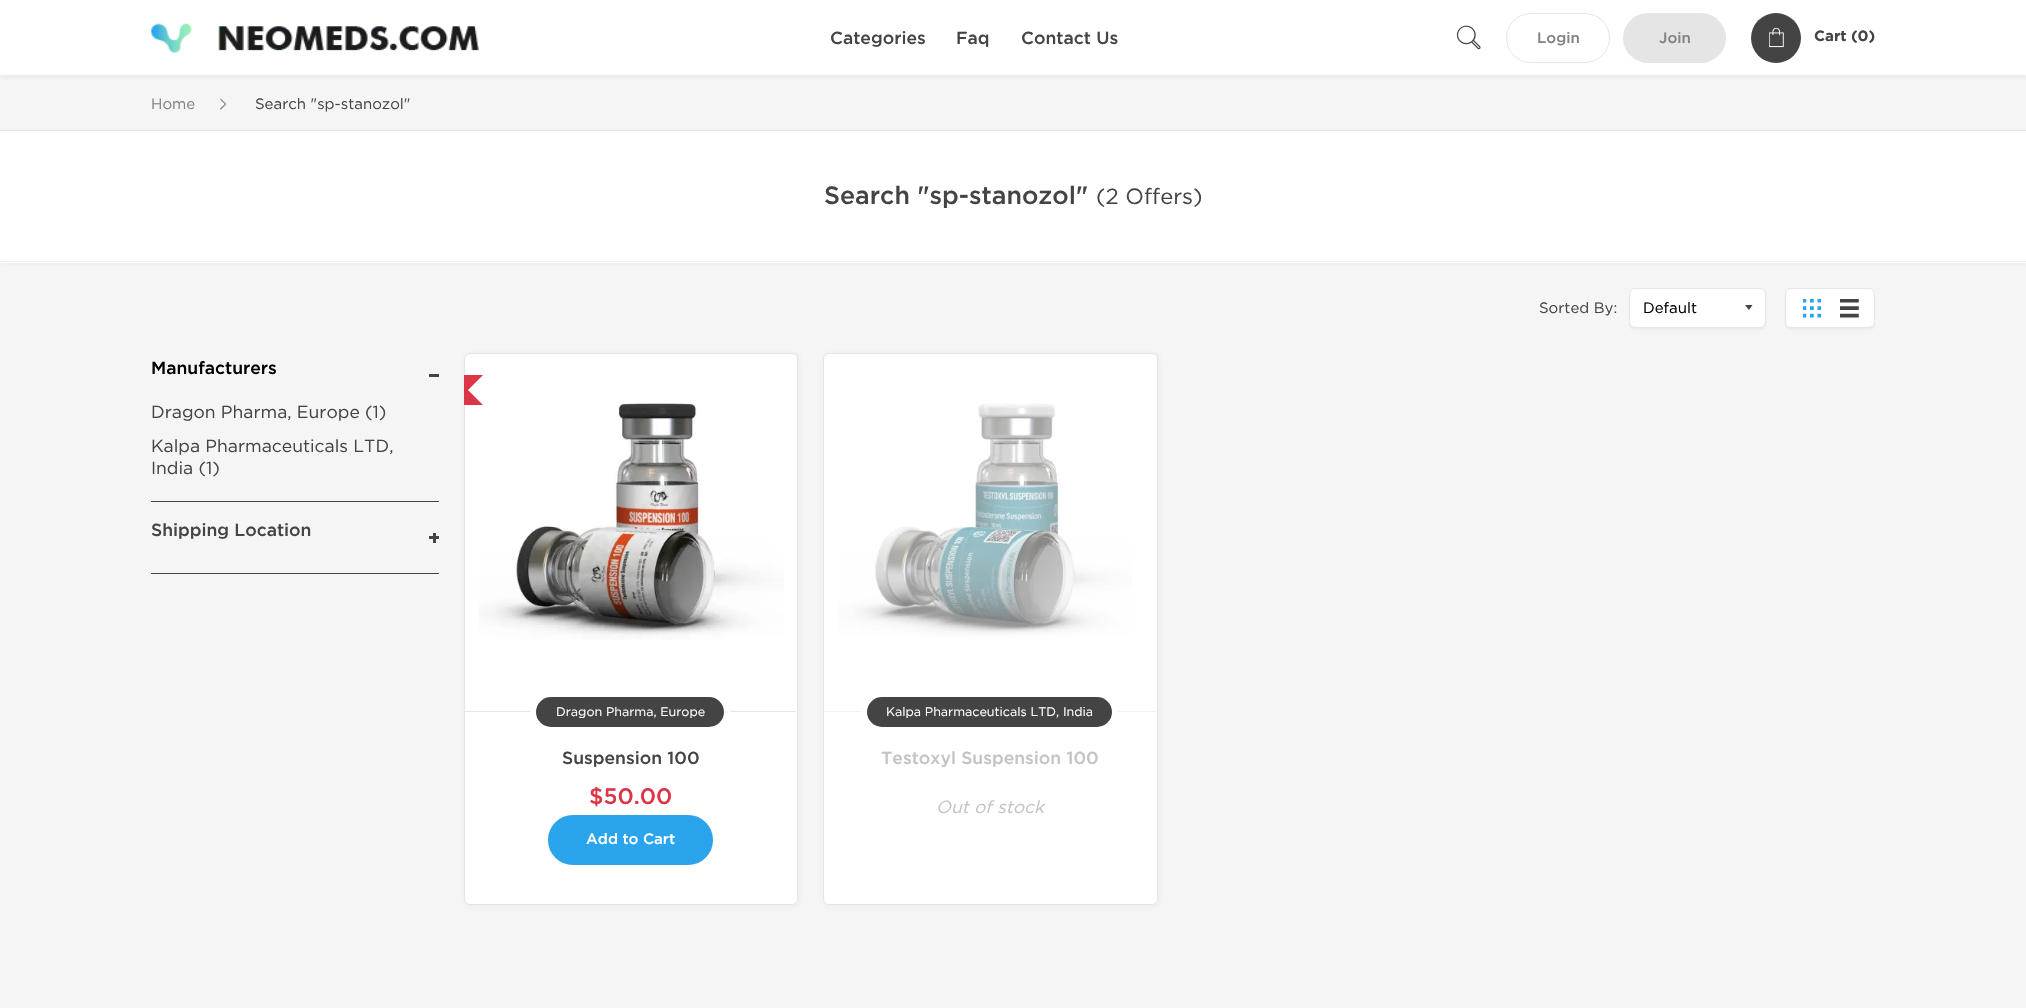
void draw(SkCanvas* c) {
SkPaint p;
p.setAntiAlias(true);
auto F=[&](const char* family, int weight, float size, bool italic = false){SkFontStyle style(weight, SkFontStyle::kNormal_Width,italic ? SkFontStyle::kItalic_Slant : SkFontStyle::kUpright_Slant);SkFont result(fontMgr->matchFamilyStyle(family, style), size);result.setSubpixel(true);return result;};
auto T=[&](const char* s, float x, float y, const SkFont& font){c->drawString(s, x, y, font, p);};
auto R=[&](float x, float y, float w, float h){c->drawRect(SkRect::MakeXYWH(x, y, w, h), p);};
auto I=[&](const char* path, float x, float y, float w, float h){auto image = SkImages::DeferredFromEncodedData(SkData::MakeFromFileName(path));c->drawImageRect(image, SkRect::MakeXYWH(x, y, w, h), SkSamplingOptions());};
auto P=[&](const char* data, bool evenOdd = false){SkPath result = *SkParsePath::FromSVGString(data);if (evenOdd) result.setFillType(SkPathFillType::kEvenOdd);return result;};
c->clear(0xfff5f5f5);
p.setColor(0x0f444444);
p.setMaskFilter(SkMaskFilter::MakeBlur(kNormal_SkBlurStyle, 2));
c->drawRect(SkRect::MakeXYWH(1,1,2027,77),p);
p.setMaskFilter(nullptr);
p.setColor(0xffffffff);
R(0,0,2026,75);
p.setColor(0xffececec);
R(0,75,2,1);
I("1.png",151,23,328,30);
auto f1 = F("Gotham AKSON",500,17.5);
p.setColor(0xff444444);
T("Categories",830,44,f1);
T("Faq",956,44,f1);
T("Contact Us",1021,44,f1);
I("2.png",1456,25,25,25);
p.setStroke(true);
p.setStrokeWidth(1);
p.setColor(0xffe5e5e5);
c->drawRoundRect(SkRect::MakeXYWH(1506.5,13.5,103,49),24.5,24.5,p);
auto f2 = F("Gotham AKSON",500,15);
p.setStroke(false);
p.setColor(0xff818284);
T("Login",1537,43,f2);
p.setColor(0xffe5e5e5);
c->drawRoundRect(SkRect::MakeXYWH(1623.5,13.5,102,49),24.5,24.5,p);
p.setStroke(true);
c->drawRoundRect(SkRect::MakeXYWH(1623.5,13.5,102,49),24.5,24.5,p);
p.setStroke(false);
p.setColor(0xff818284);
T("Join",1659,43,f2);
p.setColor(0xff444444);
c->drawCircle(1776,38,25,p);
I("3.png",1769,28,15,20);
auto f3 = F("Gotham AKSON",700,15);
T("Cart (0)",1814,41,f3);
p.setColor(0xffe5e5e5);
R(0,130,2026,1);
auto f4 = F("Gotham AKSON",400,15);
p.setColor(0xff818284);
T("Home",151,109,f4);
I("4.png",220,99,6,11);
p.setColor(0xff444444);
T("Search \"sp-stanozol\"",255,109,f4);
p.setColor(0x0f444444);
p.setMaskFilter(SkMaskFilter::MakeBlur(kNormal_SkBlurStyle, 2));
c->drawRect(SkRect::MakeXYWH(1,133,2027,131),p);
p.setMaskFilter(nullptr);
p.setColor(0xffffffff);
R(0,131,2026,132);
p.setColor(0xffececec);
R(0,261,2026,1);
auto f5 = F("Gotham AKSON",500,25);
p.setColor(0xff444444);
T("Search \"sp-stanozol\"",824,204,f5);
auto f6 = F("Gotham AKSON",400,22);
T("(2 Offers)",1096,204,f6);
T("Sorted By:",1539,313,f4);
p.setColor(0x0f444444);
p.setMaskFilter(SkMaskFilter::MakeBlur(kNormal_SkBlurStyle, 1));
c->drawRoundRect(SkRect::MakeXYWH(1629,290,137,40),6,6,p);
p.setMaskFilter(nullptr);
p.setColor(0xffffffff);
c->drawRoundRect(SkRect::MakeXYWH(1629.5,288.5,136,39),5.5,5.5,p);
p.setStroke(true);
p.setColor(0xffe5e5e5);
c->drawRoundRect(SkRect::MakeXYWH(1629.5,288.5,136,39),5.5,5.5,p);
p.setStroke(false);
p.setColor(0xff000000);
T("Default",1643,313,f4);
p.setColor(0xff444444);
c->drawPath(P("M1745 305h7.5l-3.5 5z"),p);
p.setColor(0x0f444444);
p.setMaskFilter(SkMaskFilter::MakeBlur(kNormal_SkBlurStyle, 1));
c->drawRoundRect(SkRect::MakeXYWH(1785,290,90,40),6,6,p);
p.setMaskFilter(nullptr);
p.setColor(0xffffffff);
c->drawRoundRect(SkRect::MakeXYWH(1785.5,288.5,89,39),5.5,5.5,p);
p.setStroke(true);
p.setColor(0xffe5e5e5);
c->drawRoundRect(SkRect::MakeXYWH(1785.5,288.5,89,39),5.5,5.5,p);
I("5.png",1803,299,18,19);
I("6.png",1840,299,19,19);
p.setStroke(false);
p.setColor(0xff444444);
R(151,501,288,1);
p.setColor(0xff000000);
T("Manufacturers",151,374,f1);
p.setColor(0xff444444);
R(429,374,10,3);
auto f7 = F("Gotham AKSON",400,17.5);
T("Dragon Pharma, Europe (1)",151,418,f7);
T("Kalpa Pharmaceuticals LTD,",151,452,f7);
T("India (1)",151,474,f7);
R(151,573,288,1);
T("Shipping Location",151,536,f1);
R(429,536,10,3);
R(433,533,3,10);
p.setColor(0x0f444444);
p.setMaskFilter(SkMaskFilter::MakeBlur(kNormal_SkBlurStyle, 3));
c->drawRoundRect(SkRect::MakeXYWH(465,354,334,552),6,6,p);
p.setMaskFilter(nullptr);
p.setColor(0xffffffff);
c->drawRoundRect(SkRect::MakeXYWH(464.5,353.5,333,551),5.5,5.5,p);
p.setStroke(true);
p.setColor(0xffe5e5e5);
c->drawRoundRect(SkRect::MakeXYWH(464.5,353.5,333,551),5.5,5.5,p);
I("7.png",479,403,305,237);
c->save();
c->clipRect(SkRect::MakeXYWH(464,373,331,32));
p.setStroke(false);
p.setColor(0xffdc3545);
c->drawPath(P("M453 375h30l-15 15h-30zm-15 15h30l15 15h-30z"),p);
c->restore();
p.setColor(0xffe5e5e5);
R(465,711,331,1);
p.setColor(0xff444444);
c->drawRoundRect(SkRect::MakeXYWH(533,694,194,36),18,18,p);
p.setStroke(true);
p.setStrokeWidth(6);
p.setColor(0xffffffff);
c->drawRoundRect(SkRect::MakeXYWH(533,694,194,36),18,18,p);
auto f8 = F("Gotham AKSON",400,12.5);
p.setStroke(false);
T("Dragon Pharma, Europe",556,716,f8);
p.setColor(0xff444444);
T("Suspension 100",562,764,f1);
auto f9 = F("Gotham AKSON",500,22.5);
p.setColor(0xffdc3545);
T("$50.00",589,804,f9);
p.setColor(0xff29a4ed);
c->drawRoundRect(SkRect::MakeXYWH(549.5,816.5,162,47),23.5,23.5,p);
p.setStroke(true);
p.setStrokeWidth(3);
c->drawRoundRect(SkRect::MakeXYWH(549.5,816.5,162,47),23.5,23.5,p);
p.setStroke(false);
p.setColor(0xffffffff);
T("Add to Cart",586,844,f2);
p.setColor(0x0f444444);
p.setMaskFilter(SkMaskFilter::MakeBlur(kNormal_SkBlurStyle, 3));
c->drawRoundRect(SkRect::MakeXYWH(824,354,335,552),6,6,p);
p.setMaskFilter(nullptr);
p.setColor(0xffffffff);
c->drawRoundRect(SkRect::MakeXYWH(823.5,353.5,334,551),5.5,5.5,p);
p.setStroke(true);
p.setStrokeWidth(1);
p.setColor(0xffe5e5e5);
c->drawRoundRect(SkRect::MakeXYWH(823.5,353.5,334,551),5.5,5.5,p);
p.setStroke(false);
p.setColor(0xfff2f2f2);
R(824,711,332,1);
I("8.png",838,403,294,234);
p.setColor(0xff444444);
c->drawRoundRect(SkRect::MakeXYWH(864,694,251,36),18,18,p);
p.setStroke(true);
p.setStrokeWidth(6);
p.setColor(0xffffffff);
c->drawRoundRect(SkRect::MakeXYWH(864,694,251,36),18,18,p);
p.setStroke(false);
T("Kalpa Pharmaceuticals LTD, India",886,716,f8);
p.setColor(0xffc4c4c4);
T("Testoxyl Suspension 100",881,764,f1);
auto f10 = F("Gotham AKSON",400,17.5,true);
T("Out of stock",936,813,f10);
}
